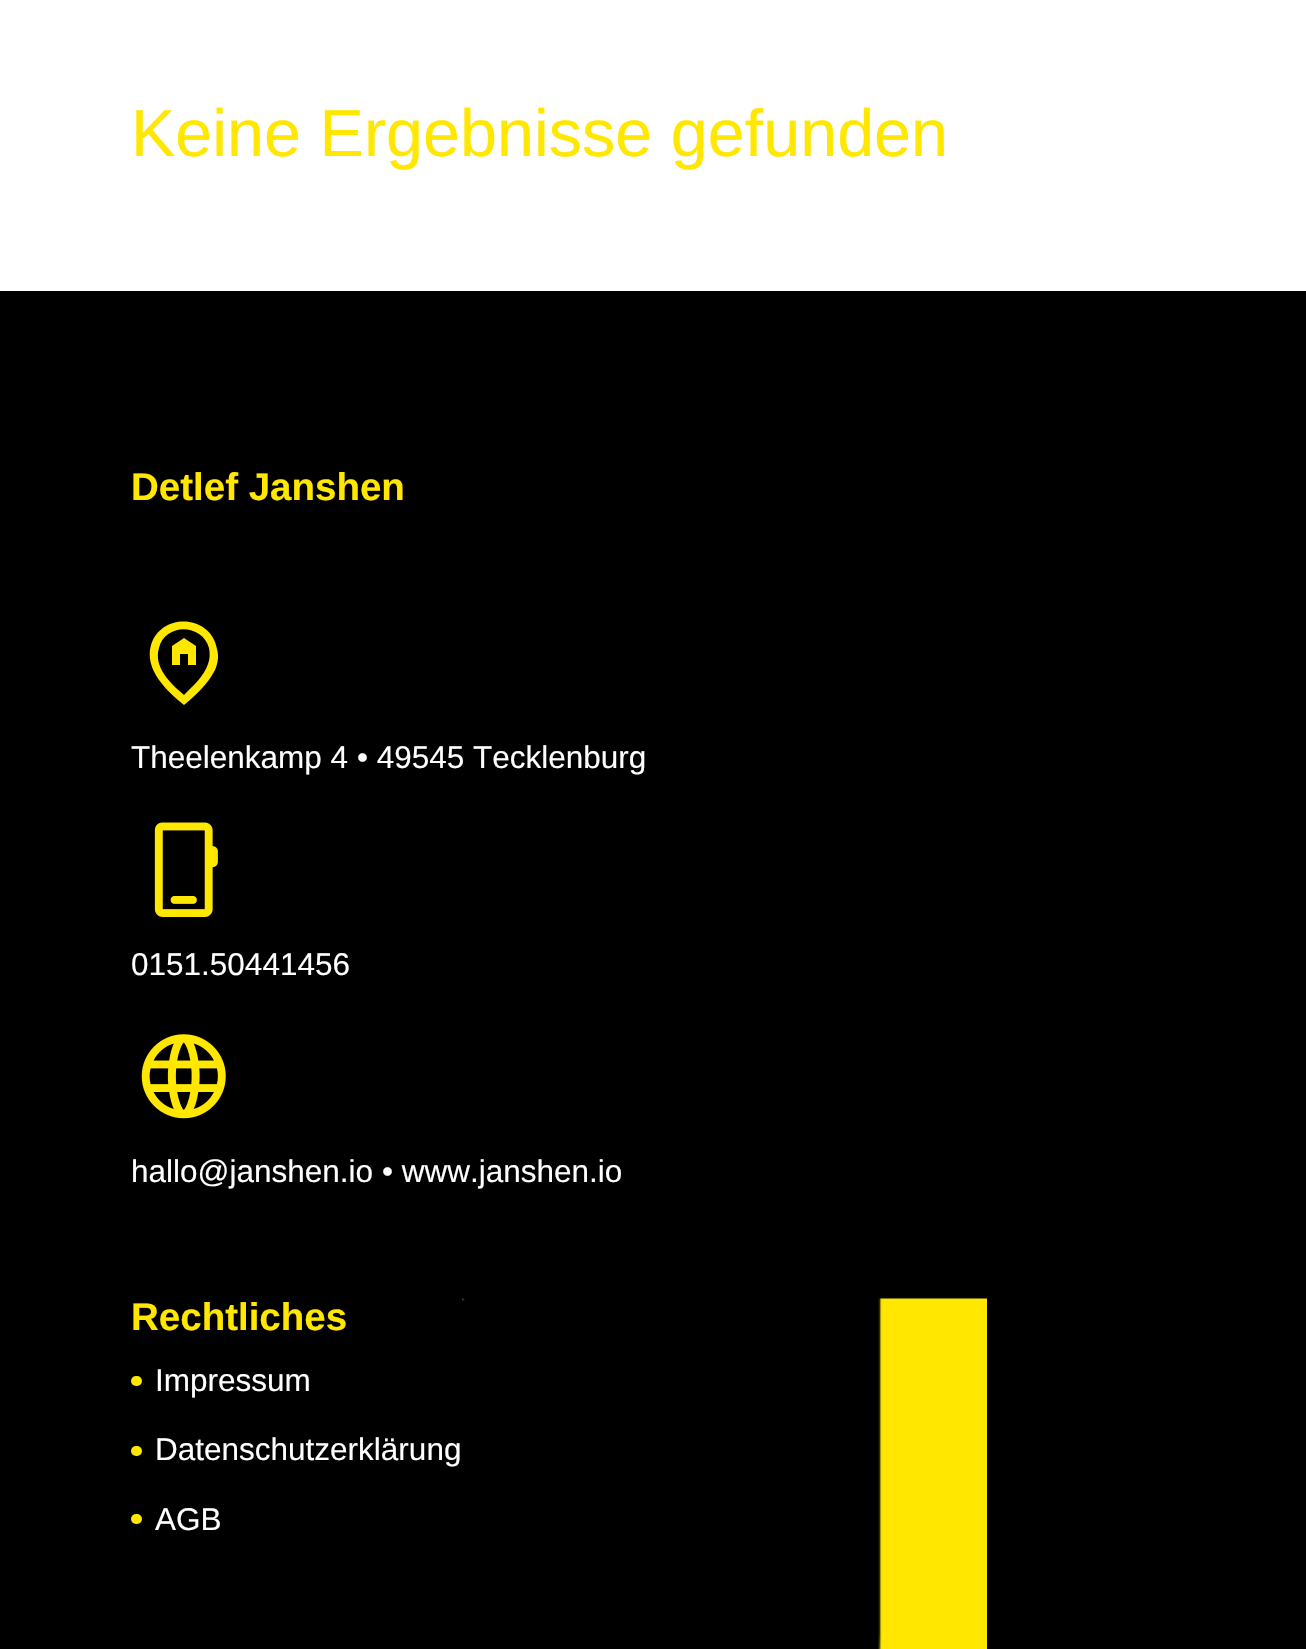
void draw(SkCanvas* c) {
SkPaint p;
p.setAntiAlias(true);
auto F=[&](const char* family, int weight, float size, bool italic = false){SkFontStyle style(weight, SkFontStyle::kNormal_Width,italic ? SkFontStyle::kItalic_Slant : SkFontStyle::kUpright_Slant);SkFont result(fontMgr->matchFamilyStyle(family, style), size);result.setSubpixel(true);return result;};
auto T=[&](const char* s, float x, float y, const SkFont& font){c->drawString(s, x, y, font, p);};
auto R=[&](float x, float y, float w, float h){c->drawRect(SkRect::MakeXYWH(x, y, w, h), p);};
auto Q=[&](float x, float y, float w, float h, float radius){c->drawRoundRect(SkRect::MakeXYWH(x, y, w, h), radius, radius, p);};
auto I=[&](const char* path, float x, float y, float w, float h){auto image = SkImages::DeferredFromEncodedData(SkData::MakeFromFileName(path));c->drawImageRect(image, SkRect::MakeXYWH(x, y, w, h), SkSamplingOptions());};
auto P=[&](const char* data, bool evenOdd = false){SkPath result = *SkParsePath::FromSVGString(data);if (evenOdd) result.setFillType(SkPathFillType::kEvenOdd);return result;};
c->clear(0xff000000);
p.setColor(0xffffffff);
R(0,0,1306,291);
auto f1 = F("Liberation Sans",400,66.5);
p.setColor(0xffffe700);
T("Keine Ergebnisse gefunden",131,156,f1);
auto f2 = F("Liberation Sans",700,38.5);
T("Detlef Janshen",131,500,f2);
c->drawPath(P("M172 665h8v-11h8v11h8v-19l-12-8l-12 8zm12 30c9-9 20-19 24-31c2-5 2-11 1-16c-7-25-44-25-50 0c-6 19 12 36 25 47zm0 10c-17-14-40-35-33-60c10-33 60-31 66 4c2 7 1 14-2 21c-7 14-19 25-31 35zm0-50z"),p);
auto f3 = F("Liberation Sans",400,31.5);
p.setColor(0xffffffff);
T("Theelenkamp 4 • 49545 Tecklenburg",131,768,f3);
I("1.png",154,822,64,95);
T("0151.50441456",131,975,f3);
I("2.png",141,1034,85,85);
T("hallo@janshen.io • www.janshen.io",131,1182,f3);
p.setColor(0xffffe700);
T("Rechtliches",131,1330,f2);
Q(131,1376,11,10,5);
p.setColor(0xffffffff);
T("Impressum",155,1391,f3);
p.setColor(0xffffe700);
Q(131,1446,11,10,5);
p.setColor(0xffffffff);
T("Datenschutzerklärung",155,1460,f3);
p.setColor(0xffffe700);
Q(131,1514,11,10,5);
p.setColor(0xffffffff);
T("AGB",155,1530,f3);
I("3.png",462,1298,525,351);
}
